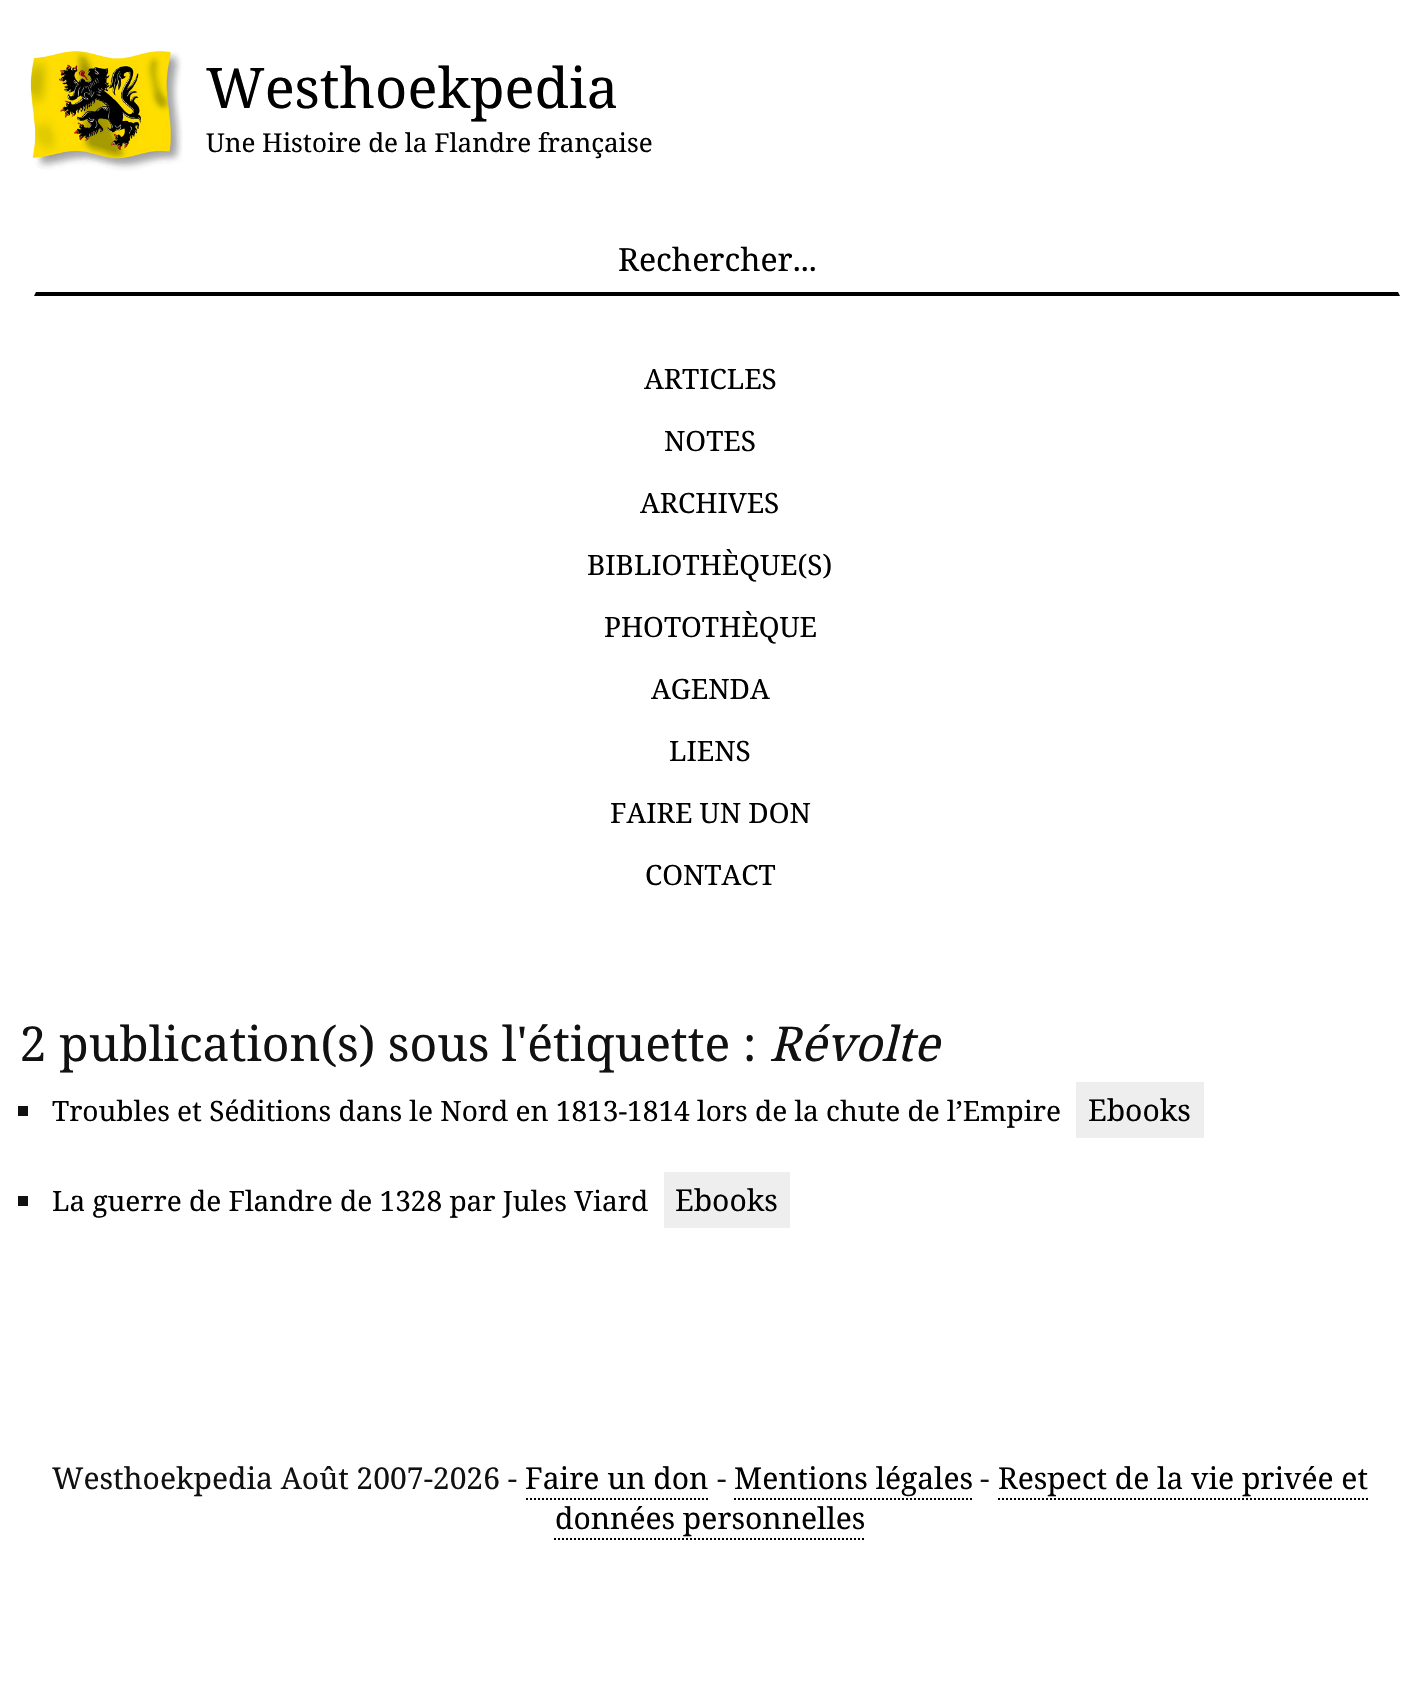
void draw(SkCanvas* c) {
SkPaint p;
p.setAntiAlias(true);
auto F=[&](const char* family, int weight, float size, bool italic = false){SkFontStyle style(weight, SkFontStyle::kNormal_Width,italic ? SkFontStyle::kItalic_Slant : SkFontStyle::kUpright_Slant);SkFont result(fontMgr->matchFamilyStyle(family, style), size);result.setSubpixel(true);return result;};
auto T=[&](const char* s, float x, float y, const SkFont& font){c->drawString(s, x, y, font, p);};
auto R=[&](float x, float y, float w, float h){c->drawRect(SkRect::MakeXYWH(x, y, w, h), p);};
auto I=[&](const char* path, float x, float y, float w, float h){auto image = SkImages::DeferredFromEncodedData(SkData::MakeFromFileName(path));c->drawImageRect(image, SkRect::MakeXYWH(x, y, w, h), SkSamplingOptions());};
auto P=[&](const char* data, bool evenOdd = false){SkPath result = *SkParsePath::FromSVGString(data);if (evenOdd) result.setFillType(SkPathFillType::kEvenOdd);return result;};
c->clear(0xffffffff);
I("1.png",30,51,153,120);
auto f1 = F("Noto Serif",400,56);
p.setColor(0xff000000);
T("Westhoekpedia",206,108,f1);
auto f2 = F("Noto Serif",400,26);
T("Une Histoire de la Flandre française",206,152,f2);
c->drawPath(P("M1400 296h-1366l2-4h1362z"),p);
auto f3 = F("Noto Serif",400,32);
T("Rechercher...",618,271,f3);
auto f4 = F("Noto Serif",400,28);
T("ARTICLES",644,389,f4);
T("NOTES",664,451,f4);
T("ARCHIVES",640,513,f4);
T("BIBLIOTHÈQUE(S)",587,575,f4);
T("PHOTOTHÈQUE",604,637,f4);
T("AGENDA",651,699,f4);
T("LIENS",669,761,f4);
T("FAIRE UN DON",610,823,f4);
T("CONTACT",645,885,f4);
auto f5 = F("Noto Serif",400,48);
p.setColor(0xff111111);
T("2 publication(s) sous l'étiquette :",20,1061,f5);
auto f6 = F("Noto Serif",400,48,true);
T("Révolte",769,1061,f6);
R(18,1106,10,10);
p.setColor(0xff000000);
T("Troubles et Séditions dans le Nord en 1813-1814 lors de la chute de l’Empire",52,1121,f4);
p.setColor(0xffeeeeee);
R(1076,1082,128,56);
auto f7 = F("Noto Serif",400,30);
p.setColor(0xff000000);
T("Ebooks",1088,1121,f7);
p.setColor(0xff111111);
R(18,1196,10,10);
p.setColor(0xff000000);
T("La guerre de Flandre de 1328 par Jules Viard",52,1211,f4);
p.setColor(0xffeeeeee);
R(664,1172,126,56);
p.setColor(0xff000000);
T("Ebooks",675,1211,f7);
p.setColor(0xff111111);
T("Westhoekpedia Août 2007-2026 -",52,1489,f7);
p.setColor(0xff000000);
T("Faire un don",525,1489,f7);
p.setStroke(true);
p.setStrokeWidth(2);
p.setPathEffect(SkDashPathEffect::Make({{2,2}}, 0));
c->drawPath(P("M526 1499h182"),p);
p.setPathEffect(nullptr);
p.setStroke(false);
p.setColor(0xff111111);
T("-",717,1489,f7);
p.setColor(0xff000000);
T("Mentions légales",734,1489,f7);
p.setStroke(true);
p.setPathEffect(SkDashPathEffect::Make({{2,2}}, 0));
c->drawPath(P("M734 1499h238"),p);
p.setPathEffect(nullptr);
p.setStroke(false);
p.setColor(0xff111111);
T("-",980,1489,f7);
p.setColor(0xff000000);
T("Respect de la vie privée et",998,1489,f7);
p.setStroke(true);
p.setPathEffect(SkDashPathEffect::Make({{2,2}}, 0));
c->drawPath(P("M998 1499h370"),p);
p.setPathEffect(nullptr);
p.setStroke(false);
T("données personnelles",555,1529,f7);
p.setStroke(true);
p.setPathEffect(SkDashPathEffect::Make({{2,2}}, 0));
c->drawPath(P("M554 1539h312"),p);
p.setPathEffect(nullptr);
}
